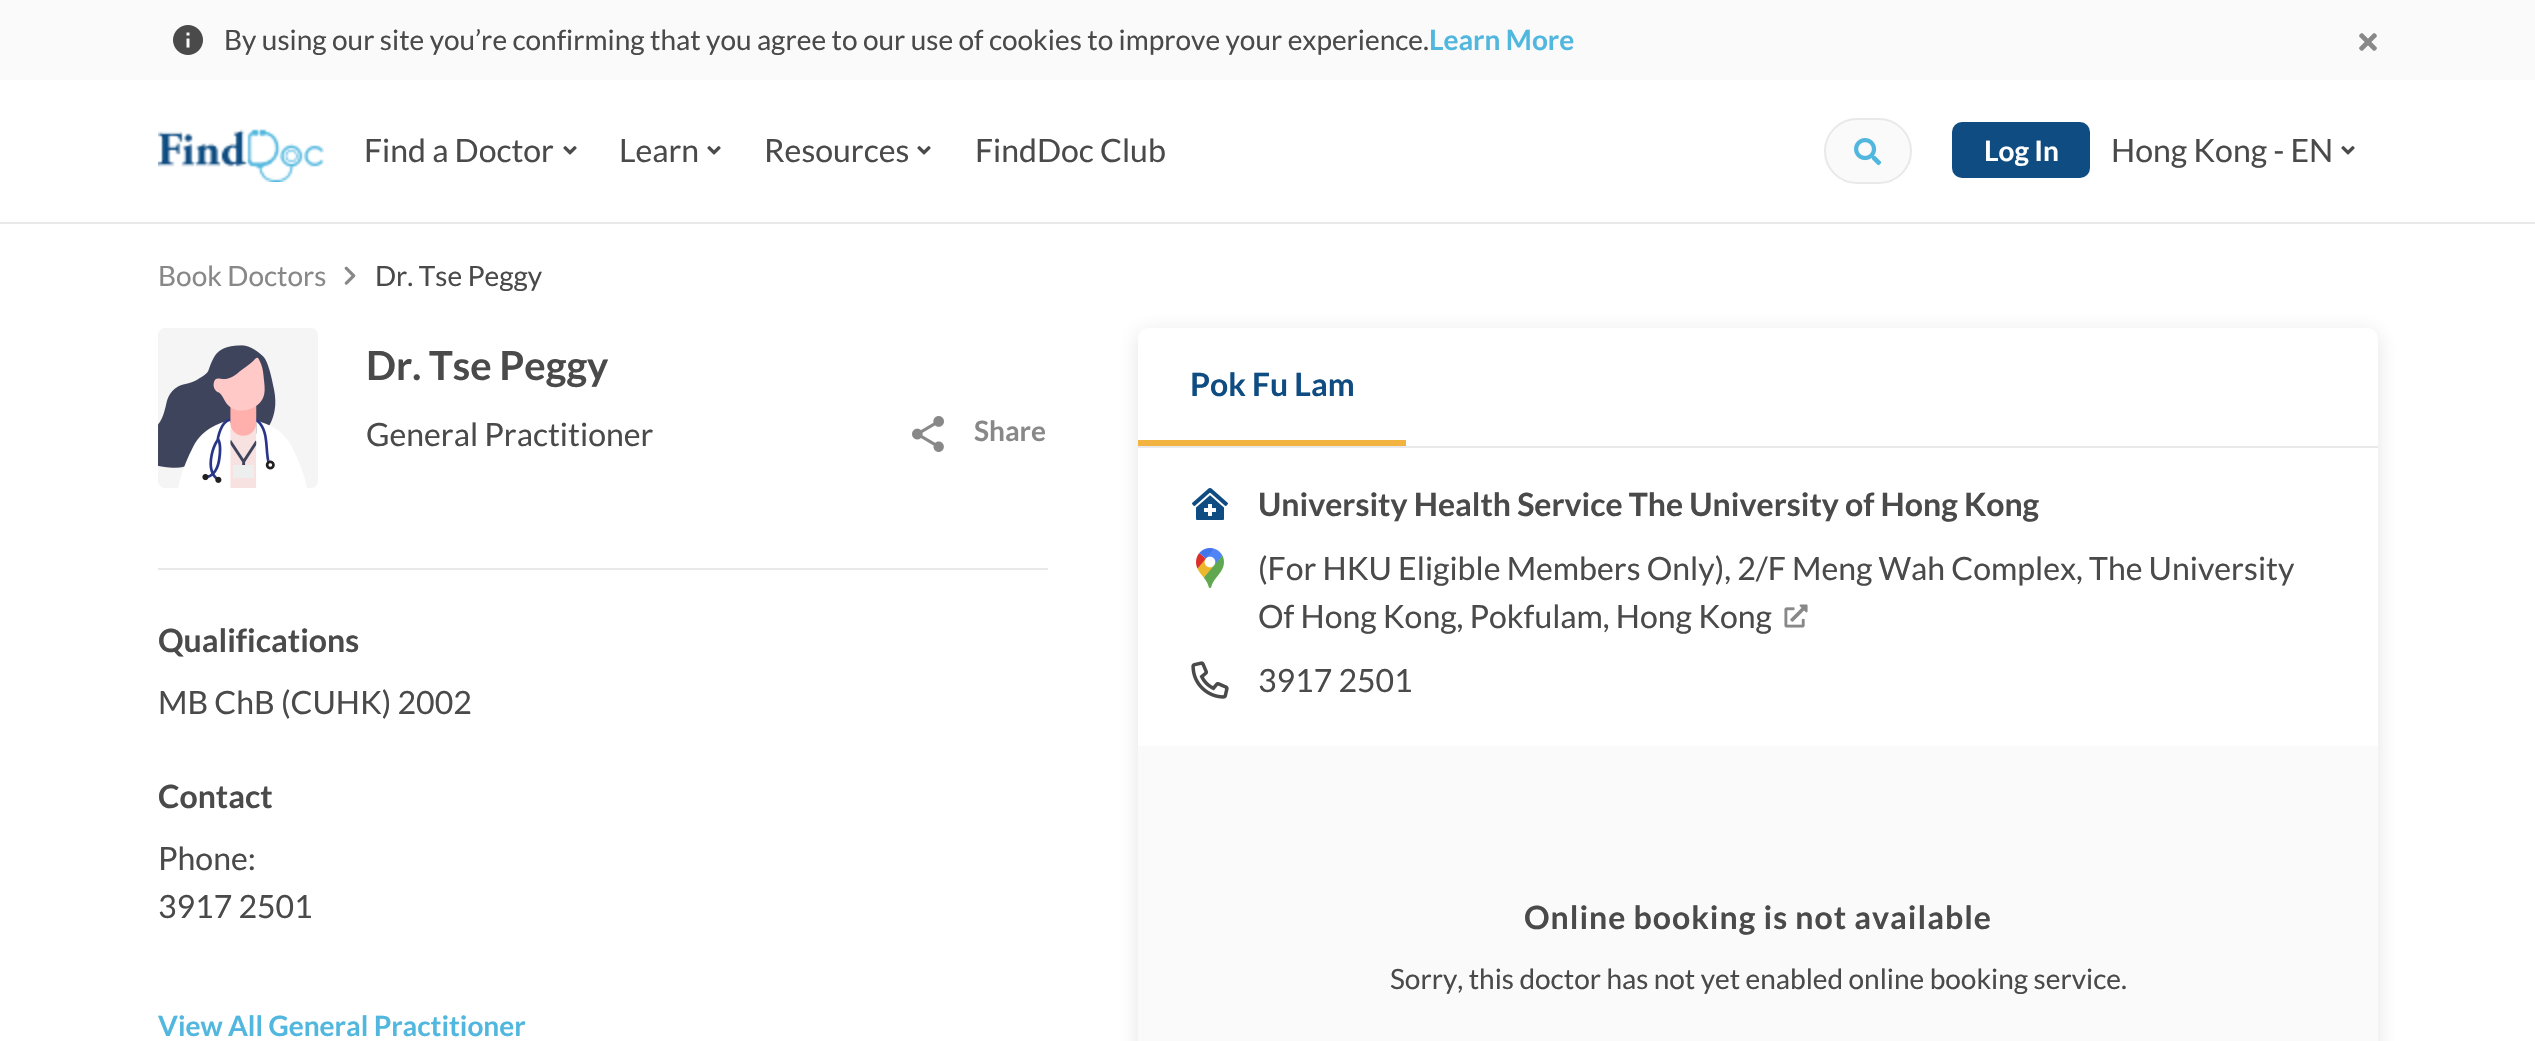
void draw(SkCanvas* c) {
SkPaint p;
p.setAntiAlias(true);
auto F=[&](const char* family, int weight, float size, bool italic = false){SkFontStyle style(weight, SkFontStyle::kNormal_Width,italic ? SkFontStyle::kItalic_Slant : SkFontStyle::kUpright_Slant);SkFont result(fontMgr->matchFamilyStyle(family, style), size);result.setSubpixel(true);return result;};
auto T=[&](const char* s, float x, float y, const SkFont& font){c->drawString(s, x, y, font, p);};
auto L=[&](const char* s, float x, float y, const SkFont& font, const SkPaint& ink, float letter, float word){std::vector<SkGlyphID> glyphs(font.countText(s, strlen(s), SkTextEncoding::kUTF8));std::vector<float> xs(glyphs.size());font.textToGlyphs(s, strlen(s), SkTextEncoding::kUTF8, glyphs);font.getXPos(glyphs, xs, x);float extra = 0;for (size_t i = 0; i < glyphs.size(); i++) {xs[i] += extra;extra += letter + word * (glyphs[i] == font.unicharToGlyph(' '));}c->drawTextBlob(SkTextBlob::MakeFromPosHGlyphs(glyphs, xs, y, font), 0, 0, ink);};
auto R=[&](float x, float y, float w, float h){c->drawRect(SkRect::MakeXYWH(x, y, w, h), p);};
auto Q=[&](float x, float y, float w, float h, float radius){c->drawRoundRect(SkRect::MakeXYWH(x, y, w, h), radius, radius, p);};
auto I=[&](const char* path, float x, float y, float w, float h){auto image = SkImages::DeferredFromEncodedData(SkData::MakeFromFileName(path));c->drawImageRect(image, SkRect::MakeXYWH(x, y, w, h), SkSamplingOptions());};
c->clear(0xffffffff);
p.setColor(0xfffafafa);
R(0,0,2535,80);
I("1.png",173,25,30,30);
auto f1 = F("Lato",400,28);
p.setColor(0xff4a4a4a);
T("By using our site you’re confirming that you agree to our use of cookies to improve your experience.",224,50,f1);
auto f2 = F("Lato",700,28);
p.setColor(0xff51b7de);
T("Learn More",1429,50,f2);
I("2.png",2359,33,18,18);
p.setColor(0xffe9e9e9);
R(0,222,2535,2);
I("3.png",158,129,166,53);
auto f3 = F("Lato",400,32);
p.setColor(0xff4a4a4a);
T("Find a Doctor",364,162,f3);
I("4.png",563,146,14,9);
T("Learn",619,162,f3);
I("4.png",707,146,14,9);
T("Resources",764,162,f3);
I("4.png",917,146,14,9);
T("FindDoc Club",975,162,f3);
p.setColor(0xfffafafa);
c->drawRoundRect(SkRect::MakeXYWH(1825,119,86,64),32,32,p);
p.setStroke(true);
p.setStrokeWidth(2);
p.setColor(0xffe9e9e9);
c->drawRoundRect(SkRect::MakeXYWH(1825,119,86,64),32,32,p);
I("5.png",1854,138,28,28);
p.setStroke(false);
p.setColor(0xff0f4c81);
c->drawRoundRect(SkRect::MakeXYWH(1953,123,136,54),9,9,p);
p.setStroke(true);
c->drawRoundRect(SkRect::MakeXYWH(1953,123,136,54),9,9,p);
p.setStroke(false);
p.setColor(0xffffffff);
T("Log In",1984,161,f2);
p.setColor(0xff4a4a4a);
T("Hong Kong - EN",2111,162,f3);
I("4.png",2341,146,14,9);
p.setColor(0xff888888);
T("Book Doctors",158,286,f1);
I("6.png",344,266,12,19);
p.setColor(0xff4a4a4a);
T("Dr. Tse Peggy",375,286,f1);
p.setColor(0xffe9e9e9);
R(158,568,890,2);
I("7.png",158,328,160,160);
auto f4 = F("Lato",700,40);
p.setColor(0xff4a4a4a);
T("Dr. Tse Peggy",366,380,f4);
T("General Practitioner",366,446,f3);
I("8.png",912,416,32,36);
p.setColor(0xff888888);
T("Share",974,441,f2);
auto f5 = F("Lato",700,32);
p.setColor(0xff4a4a4a);
T("Qualifications",158,652,f5);
T("MB ChB (CUHK) 2002",158,714,f3);
T("Contact",158,808,f5);
T("Phone:",158,870,f3);
T("3917 2501",158,918,f3);
p.setColor(0xff51b7de);
T("View All General Practitioner",158,1036,f2);
p.setColor(0x264a4a4a);
p.setMaskFilter(SkMaskFilter::MakeBlur(kNormal_SkBlurStyle, 10));
c->drawRoundRect(SkRect::MakeXYWH(1138,332,1240,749),10,10,p);
p.setMaskFilter(nullptr);
p.setColor(0xffffffff);
Q(1138,328,1240,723,10);
p.setColor(0xffe9e9e9);
R(1138,446,1240,2);
p.setColor(0xfff3b340);
R(1138,440,268,6);
p.setColor(0xff0f4c81);
T("Pok Fu Lam",1190,396,f5);
I("9.png",1192,488,36,32);
p.setColor(0xff4a4a4a);
T("University Health Service The University of Hong Kong",1258,516,f5);
I("10.png",1196,548,28,40);
T("(For HKU Eligible Members Only), 2/F Meng Wah Complex, The University",1258,580,f3);
T("Of Hong Kong, Pokfulam, Hong Kong",1258,628,f3);
I("11.png",1784,604,24,24);
I("12.png",1191,661,38,38);
T("3917 2501",1258,692,f3);
p.setColor(0xfffafafa);
R(1138,746,1240,295);
p.setColor(0xff4a4a4a);
L("Online booking is not available",1524,929,f5,p,1,0);
T("Sorry, this doctor has not yet enabled online booking service.",1390,989,f1);
}
